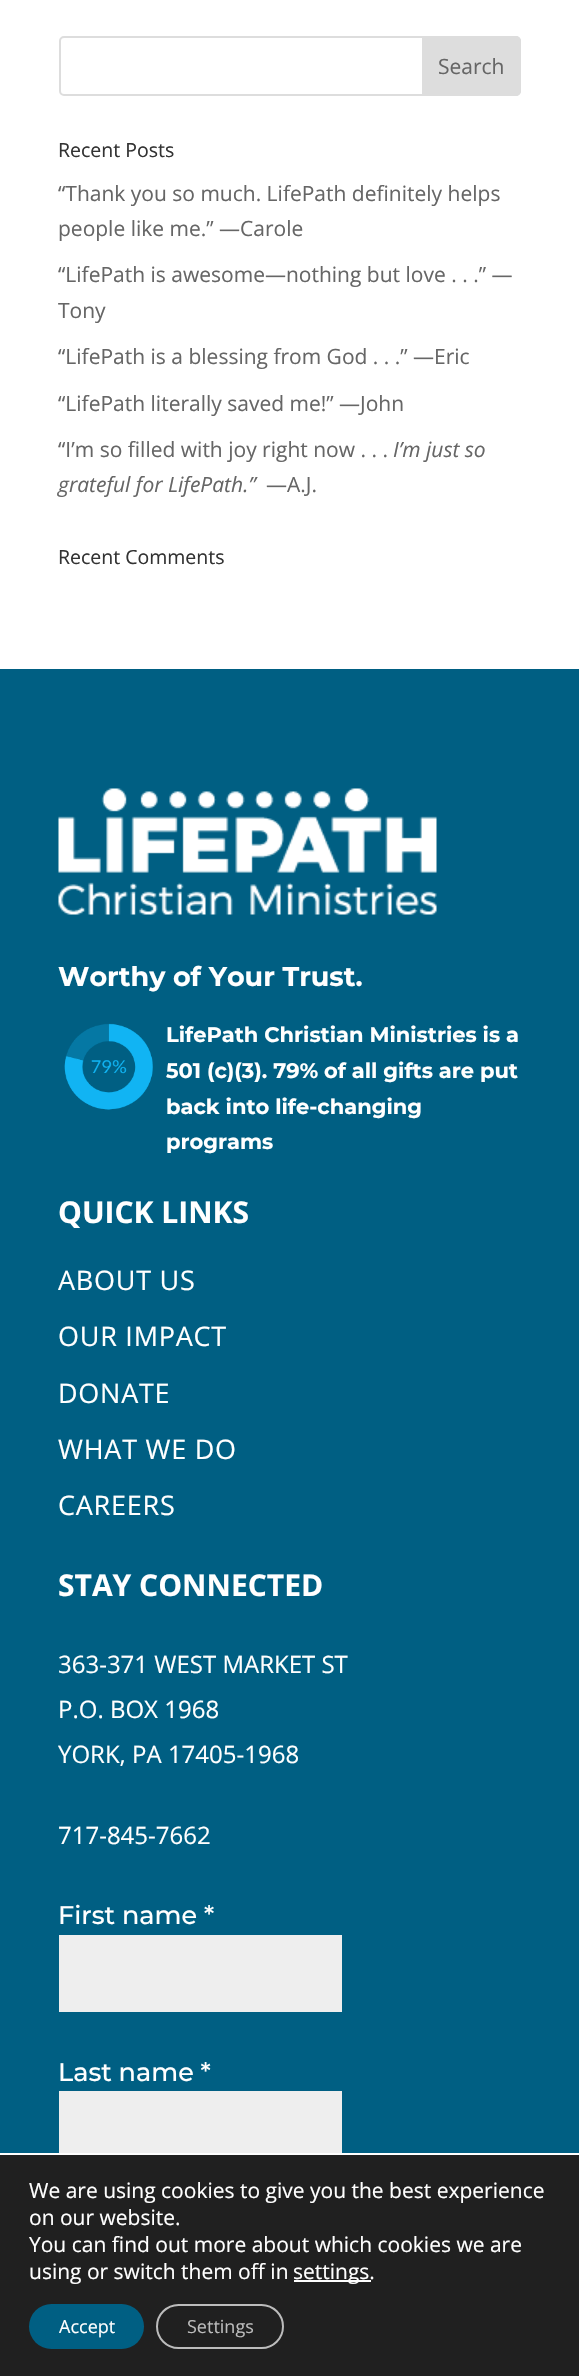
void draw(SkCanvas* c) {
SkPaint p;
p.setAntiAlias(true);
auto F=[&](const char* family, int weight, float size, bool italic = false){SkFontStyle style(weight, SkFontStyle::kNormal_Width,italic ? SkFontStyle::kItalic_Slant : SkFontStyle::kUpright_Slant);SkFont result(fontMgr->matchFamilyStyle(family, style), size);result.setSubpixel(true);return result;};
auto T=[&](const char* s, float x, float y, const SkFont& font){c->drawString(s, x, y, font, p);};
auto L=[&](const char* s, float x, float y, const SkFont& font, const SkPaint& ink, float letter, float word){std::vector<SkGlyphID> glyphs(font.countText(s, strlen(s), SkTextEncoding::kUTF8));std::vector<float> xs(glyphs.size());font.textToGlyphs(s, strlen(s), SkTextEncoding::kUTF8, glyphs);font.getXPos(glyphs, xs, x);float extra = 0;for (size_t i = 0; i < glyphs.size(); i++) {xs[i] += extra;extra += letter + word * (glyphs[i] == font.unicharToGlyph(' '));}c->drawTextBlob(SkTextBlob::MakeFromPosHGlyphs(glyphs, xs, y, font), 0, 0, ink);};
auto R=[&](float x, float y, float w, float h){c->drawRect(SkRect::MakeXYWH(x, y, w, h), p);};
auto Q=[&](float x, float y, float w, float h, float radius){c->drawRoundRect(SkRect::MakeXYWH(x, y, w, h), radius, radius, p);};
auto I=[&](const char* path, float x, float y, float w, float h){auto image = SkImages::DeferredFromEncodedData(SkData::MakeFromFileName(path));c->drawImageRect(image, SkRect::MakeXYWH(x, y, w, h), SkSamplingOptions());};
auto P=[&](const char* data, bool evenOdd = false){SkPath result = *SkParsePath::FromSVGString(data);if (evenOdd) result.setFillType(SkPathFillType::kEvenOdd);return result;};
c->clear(0xffffffff);
p.setStroke(true);
p.setStrokeWidth(2);
p.setColor(0xffdddddd);
c->drawRoundRect(SkRect::MakeXYWH(60,37,460,58),4,4,p);
p.setStroke(false);
c->drawPath(P("M423 37h93c2 0 4 2 4 4v50c0 2-2 4-4 4h-93z"),p);
p.setStroke(true);
c->drawPath(P("M423 37h93c2 0 4 2 4 4v50c0 2-2 4-4 4h-93z"),p);
auto f1 = F("Open Sans",400,21);
p.setStroke(false);
p.setColor(0xff666666);
T("Search",438,74,f1);
auto f2 = F("Open Sans",400,19.5);
p.setColor(0xff333333);
T("Recent Posts",58,157,f2);
p.setColor(0xff666666);
T("“Thank you so much. LifePath definitely helps",58,201,f1);
T("people like me.” —Carole",58,236,f1);
T("“LifePath is awesome—nothing but love . . .” —",58,282,f1);
T("Tony",58,318,f1);
T("“LifePath is a blessing from God . . .” —Eric",58,364,f1);
T("“LifePath literally saved me!” —John",58,411,f1);
T("“I’m so filled with joy right now . . .",58,457,f1);
auto f3 = F("Open Sans",400,21,true);
T("I’m just so",393,457,f3);
T("grateful for LifePath.”",58,492,f3);
T("—A.J.",266,492,f1);
p.setColor(0xff333333);
T("Recent Comments",58,564,f2);
p.setColor(0xff005f83);
R(0,669,579,1484);
I("1.png",58,788,379,127);
auto f4 = F("Montserrat",700,27);
p.setColor(0xffffffff);
T("Worthy of Your Trust.",58,986,f4);
I("2.png",64,1023,89,87);
auto f5 = F("Montserrat",700,21);
T("LifePath Christian Ministries is a",166,1042,f5);
T("501 (c)(3). 79% of all gifts are put",166,1078,f5);
T("back into life-changing",166,1114,f5);
T("programs",166,1149,f5);
auto f6 = F("Open Sans",700,30);
T("QUICK LINKS",58,1223,f6);
auto f7 = F("Open Sans",400,27);
L("ABOUT US",58,1290,f7,p,.75,0);
L("OUR IMPACT",58,1346,f7,p,.75,0);
L("DONATE",58,1403,f7,p,.75,0);
L("WHAT WE DO",58,1459,f7,p,.75,0);
L("CAREERS",58,1515,f7,p,.75,0);
T("STAY CONNECTED",58,1596,f6);
auto f8 = F("Open Sans",400,24);
T("363-371 WEST MARKET ST",58,1673,f8);
T("P.O. BOX 1968",58,1718,f8);
T("YORK, PA 17405-1968",58,1763,f8);
T("717-845-7662",58,1844,f8);
auto f9 = F("Montserrat",500,25.5);
T("First name *",58,1924,f9);
p.setColor(0xffeeeeee);
R(59,1935,283,77);
p.setColor(0xffffffff);
T("Last name *",58,2081,f9);
p.setColor(0xffeeeeee);
R(59,2091,283,62);
p.setColor(0xff202020);
R(0,2155,579,221);
p.setColor(0xffffffff);
T("We are using cookies to give you the best experience",29,2198,f1);
T("on our website.",29,2225,f1);
T("You can find out more about which cookies we are",29,2252,f1);
T("using or switch them off in",29,2279,f1);
R(294,2280,77,2);
T("settings.",293,2279,f1);
p.setColor(0xff005f83);
Q(29,2304,115,45,22.5);
auto f10 = F("Open Sans",400,18);
p.setColor(0xffffffff);
T("Accept",59,2333,f10);
p.setStroke(true);
p.setColor(0xffbcbcbc);
c->drawRoundRect(SkRect::MakeXYWH(157,2305,126,43),21.5,21.5,p);
p.setStroke(false);
T("Settings",187,2333,f10);
}
